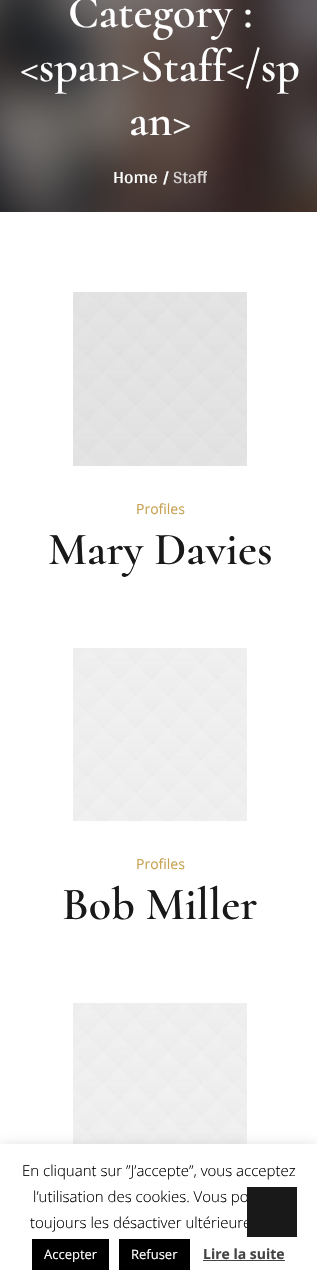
void draw(SkCanvas* c) {
SkPaint p;
p.setAntiAlias(true);
auto F=[&](const char* family, int weight, float size, bool italic = false){SkFontStyle style(weight, SkFontStyle::kNormal_Width,italic ? SkFontStyle::kItalic_Slant : SkFontStyle::kUpright_Slant);SkFont result(fontMgr->matchFamilyStyle(family, style), size);result.setSubpixel(true);return result;};
auto T=[&](const char* s, float x, float y, const SkFont& font){c->drawString(s, x, y, font, p);};
auto R=[&](float x, float y, float w, float h){c->drawRect(SkRect::MakeXYWH(x, y, w, h), p);};
auto I=[&](const char* path, float x, float y, float w, float h){auto image = SkImages::DeferredFromEncodedData(SkData::MakeFromFileName(path));c->drawImageRect(image, SkRect::MakeXYWH(x, y, w, h), SkSamplingOptions());};
c->clear(0xffffffff);
I("1.png",0,0,317,212);
auto f1 = F("Cormorant",600,46);
p.setColor(0xffffffff);
T("Category :",68,27,f1);
T("<span>Staff</sp",20,81,f1);
T("an>",129,135,f1);
auto f2 = F("Arya",400,18);
T("Home",113,183,f2);
T("/",163,183,f2);
c->save();
c->clipRect(SkRect::MakeXYWH(113,147,94,45));
p.setColor(0xffdbd8d7);
T("Staff",173,183,f2);
c->restore();
I("2.png",73,292,174,174);
auto f3 = F("Open Sans",400,14);
p.setColor(0xffc7a254);
T("Profiles",136,514,f3);
p.setColor(0xff191919);
T("Mary Davies",48,564,f1);
I("3.png",73,648,174,173);
p.setColor(0xffc7a254);
T("Profiles",136,869,f3);
p.setColor(0xff191919);
T("Bob Miller",62,919,f1);
I("4.png",73,1003,174,141);
p.setColor(0x4dacabab);
p.setMaskFilter(SkMaskFilter::MakeBlur(kNormal_SkBlurStyle, 5));
c->drawRect(SkRect::MakeXYWH(0,1143,317,143),p);
p.setMaskFilter(nullptr);
p.setColor(0xffffffff);
R(0,1144,317,143);
auto f4 = F("Open Sans",300,15);
p.setColor(0xff000000);
T("l’utilisation des cookies. Vous po",33,1202,f4);
T("toujours les désactiver ultérieure",30,1228,f4);
p.setColor(0xff191919);
R(247,1187,50,50);
p.setColor(0xff000000);
T("En cliquant sur ”J’accepte”, vous acceptez",22,1176,f4);
R(32,1239,77,31);
auto f5 = F("Open Sans",400,13);
p.setColor(0xffffffff);
T("Accepter",44,1259,f5);
p.setColor(0xff000000);
R(119,1239,71,31);
p.setColor(0xffffffff);
T("Refuser",131,1259,f5);
auto f6 = F("Open Sans",700,14);
p.setColor(0xff444444);
T("Lire la suite",203,1259,f6);
R(203,1260,82,1);
}
